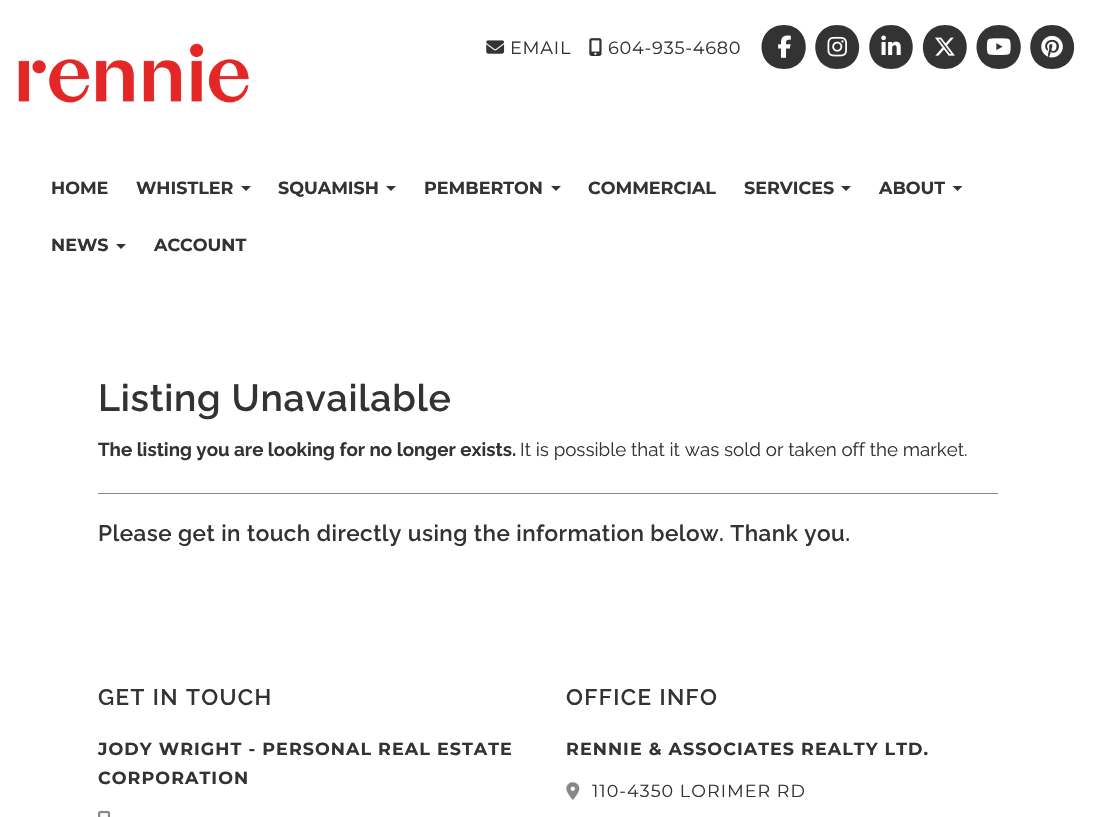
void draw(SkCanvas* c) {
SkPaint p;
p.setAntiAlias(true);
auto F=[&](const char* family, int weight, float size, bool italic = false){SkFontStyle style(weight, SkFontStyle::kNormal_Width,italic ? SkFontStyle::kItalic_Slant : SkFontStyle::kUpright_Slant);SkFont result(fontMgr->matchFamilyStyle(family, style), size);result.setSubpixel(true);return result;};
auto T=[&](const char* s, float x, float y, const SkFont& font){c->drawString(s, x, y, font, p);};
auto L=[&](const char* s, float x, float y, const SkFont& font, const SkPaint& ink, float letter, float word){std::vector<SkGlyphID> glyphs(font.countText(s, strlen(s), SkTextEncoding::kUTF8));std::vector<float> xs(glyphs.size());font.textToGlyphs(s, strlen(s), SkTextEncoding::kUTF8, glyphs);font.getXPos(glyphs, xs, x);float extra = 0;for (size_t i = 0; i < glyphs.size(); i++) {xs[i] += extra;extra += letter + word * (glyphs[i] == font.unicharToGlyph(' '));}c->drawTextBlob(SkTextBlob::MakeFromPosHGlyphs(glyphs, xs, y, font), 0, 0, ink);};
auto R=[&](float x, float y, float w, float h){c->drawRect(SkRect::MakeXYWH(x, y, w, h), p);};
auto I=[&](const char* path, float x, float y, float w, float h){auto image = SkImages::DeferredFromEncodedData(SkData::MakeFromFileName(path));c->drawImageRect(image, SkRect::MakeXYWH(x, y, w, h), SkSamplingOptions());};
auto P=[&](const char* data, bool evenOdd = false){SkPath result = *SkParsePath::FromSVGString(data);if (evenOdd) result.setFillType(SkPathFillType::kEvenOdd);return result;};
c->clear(0xffffffff);
I("1.png",18,43,231,60);
I("2.png",486,40,19,14);
auto f1 = F("Montserrat",400,17.75);
p.setColor(0xff333333);
L("EMAIL",510,54,f1,p,.75,0);
I("3.png",589,38,13,18);
L("604-935-4680",608,54,f1,p,.75,0);
c->drawPath(P("M784 69c29 0 29-44 0-44c-30 0-30 44 0 44z"),p);
I("4.png",778,35,13,23);
c->drawPath(P("M837 69c30 0 29-44 0-44c-29 0-29 44 0 44z"),p);
I("5.png",827,36,20,21);
c->drawPath(P("M891 69c29 0 29-44 0-44c-29 0-29 44 0 44z"),p);
I("6.png",881,35,20,20);
c->drawPath(P("M945 69c29 0 29-44 0-44c-29 0-30 44 0 44z"),p);
I("7.png",935,37,20,19);
c->drawPath(P("M999 69c29 0 29-44 0-44c-30 0-30 44 0 44z"),p);
I("8.png",986,38,25,17);
c->drawPath(P("M1052 69c30 0 29-44 0-44c-29 0-29 44 0 44z"),p);
I("9.png",1041,35,22,23);
auto f2 = F("Montserrat",700,17.5);
T("HOME",51,194,f2);
T("WHISTLER",136,194,f2);
c->drawPath(P("M241 186h10l-5 5z"),p);
T("SQUAMISH",278,194,f2);
c->drawPath(P("M386 186h10l-5 5z"),p);
T("PEMBERTON",424,194,f2);
c->drawPath(P("M551 186h10l-5 5z"),p);
T("COMMERCIAL",588,194,f2);
T("SERVICES",744,194,f2);
c->drawPath(P("M841 186h10l-5 5z"),p);
T("ABOUT",879,194,f2);
c->drawPath(P("M952.5 186h10l-5 5z"),p);
T("NEWS",51,251,f2);
c->drawPath(P("M116 244h10l-5 5z"),p);
T("ACCOUNT",154,251,f2);
auto f3 = F("Raleway",600,37.5);
L("Listing Unavailable",98,411,f3,p,.75,0);
auto f4 = F("Raleway",700,18.75);
T("The listing you are looking for no longer exists.",98,456,f4);
auto f5 = F("Raleway",400,18.75);
T("It is possible that it was sold or taken off the market.",520,456,f5);
p.setColor(0xff888888);
R(98,493,900,1);
auto f6 = F("Raleway",600,22.5);
p.setColor(0xff333333);
L("Please get in touch directly using the information below. Thank you.",98,541,f6,p,.45,0);
L("GET IN TOUCH",98,705,f6,p,1.4,0);
L("JODY WRIGHT - PERSONAL REAL ESTATE",98,755,f2,p,1.05,0);
L("CORPORATION",98,784,f2,p,1.05,0);
I("10.png",98,810,13,7);
L("OFFICE INFO",566,705,f6,p,1.4,0);
L("RENNIE & ASSOCIATES REALTY LTD.",566,755,f2,p,1.05,0);
I("11.png",566,782,14,18);
auto f7 = F("Montserrat",400,17.5);
L("110-4350 LORIMER RD",592,797,f7,p,1.05,0);
}
